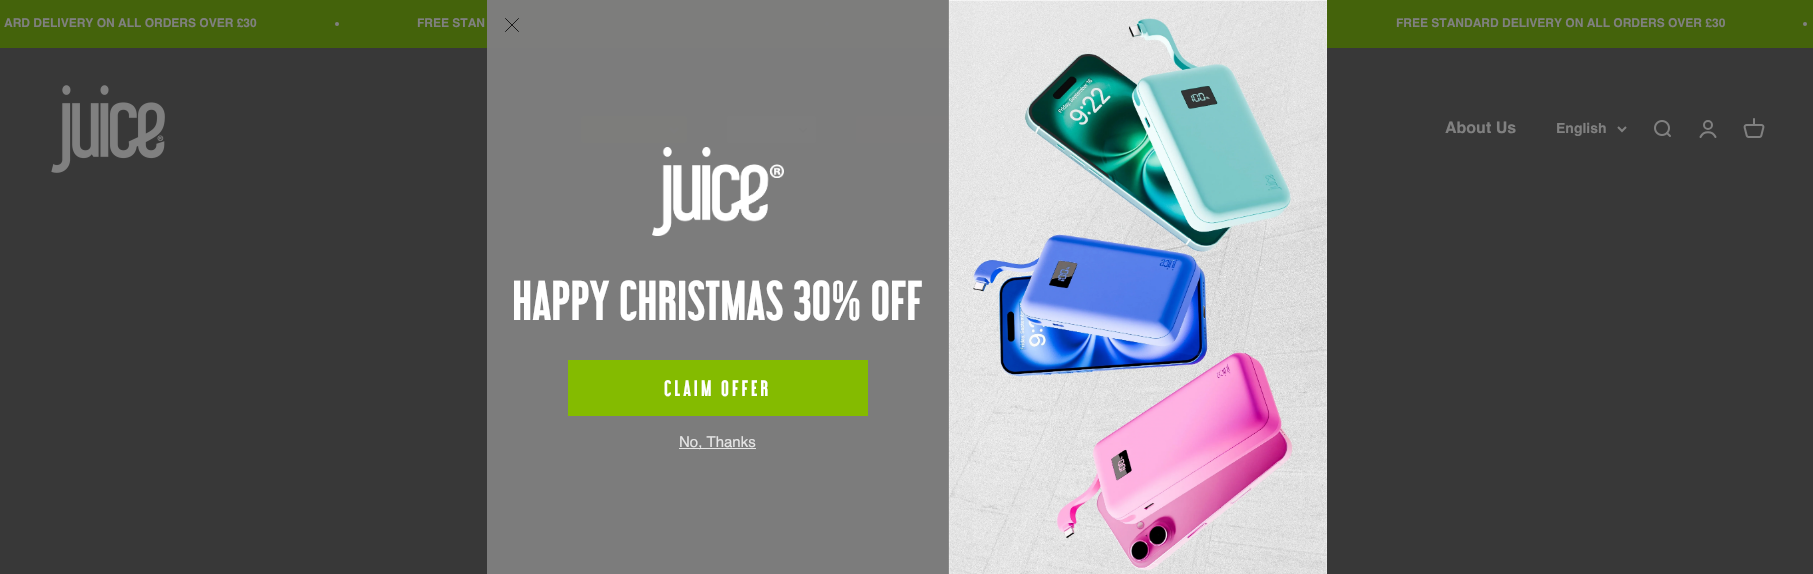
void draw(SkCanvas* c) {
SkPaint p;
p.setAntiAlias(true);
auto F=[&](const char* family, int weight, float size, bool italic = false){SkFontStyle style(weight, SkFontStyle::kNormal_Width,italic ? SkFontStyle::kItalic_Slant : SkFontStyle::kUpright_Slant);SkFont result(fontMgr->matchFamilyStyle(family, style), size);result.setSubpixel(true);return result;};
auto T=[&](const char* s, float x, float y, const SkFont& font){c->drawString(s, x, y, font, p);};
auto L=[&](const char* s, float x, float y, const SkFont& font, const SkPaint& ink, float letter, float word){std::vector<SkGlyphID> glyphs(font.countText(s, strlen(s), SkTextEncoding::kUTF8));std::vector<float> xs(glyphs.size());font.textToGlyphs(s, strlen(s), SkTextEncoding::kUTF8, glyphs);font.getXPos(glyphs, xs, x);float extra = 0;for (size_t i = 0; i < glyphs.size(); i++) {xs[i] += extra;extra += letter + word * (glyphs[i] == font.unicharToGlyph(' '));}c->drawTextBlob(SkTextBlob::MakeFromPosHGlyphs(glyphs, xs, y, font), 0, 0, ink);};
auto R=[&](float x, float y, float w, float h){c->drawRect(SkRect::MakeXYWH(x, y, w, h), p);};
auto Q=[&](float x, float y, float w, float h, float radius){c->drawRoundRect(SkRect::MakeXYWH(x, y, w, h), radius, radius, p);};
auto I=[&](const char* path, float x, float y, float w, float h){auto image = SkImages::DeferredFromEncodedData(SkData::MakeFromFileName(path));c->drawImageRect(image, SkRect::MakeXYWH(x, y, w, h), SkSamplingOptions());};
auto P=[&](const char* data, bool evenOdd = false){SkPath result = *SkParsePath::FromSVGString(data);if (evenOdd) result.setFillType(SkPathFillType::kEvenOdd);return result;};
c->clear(0xff383838);
p.setColor(0xff44630b);
R(0,0,1813,48);
auto f1 = F("Helvetica",700,12);
p.setColor(0xff808080);
T("ARD DELIVERY ON ALL ORDERS OVER £30",4,27,f1);
c->drawCircle(337,24,2,p);
T("FREE STAN",417,27,f1);
c->drawCircle(827,24,2,p);
T("FREE STANDARD DELIVERY ON ALL ORDERS OVER £30",1396,27,f1);
c->drawCircle(1805,24,2,p);
I("1.png",51,85,114,88);
p.setColor(0xff425f00);
Q(581,116,106,27,3);
p.setStroke(true);
p.setStrokeWidth(2);
p.setColor(0xff808080);
c->drawPath(P("M670 128l4 4l4-4"),p);
p.setStroke(false);
Q(727,116,89,27,3);
p.setStroke(true);
p.setColor(0xff000000);
c->drawPath(P("M799 128l4 4l4-4"),p);
p.setStroke(false);
p.setColor(0xff73213d);
Q(856,116,136,27,3);
auto f2 = F("Helvetica",700,16);
p.setColor(0xff808080);
T("About Us",1445,133,f2);
auto f3 = F("Helvetica",700,14);
T("English",1556,133,f3);
p.setStroke(true);
c->drawPath(P("M1618 127l4 4l4-4"),p);
I("2.png",1654,120,17,17);
c->drawCircle(1708,125,4,p);
p.setStrokeCap(SkPaint::kRound_Cap);
c->drawPath(P("M1700.5 137c3-6.5 12-6.5 15 0"),p);
I("3.png",1743,118,22,20);
p.setStroke(false);
p.setColor(0xf7ffffff);
R(487,0,840,574);
p.setColor(0x80000000);
R(487,0,462,574);
p.setStroke(true);
p.setStrokeWidth(.8);
p.setColor(0xff000000);
c->drawPath(P("M505.5 18.5l13 13m0-13l-13 13"),p);
I("4.png",652,147,132,89);
auto f4 = F("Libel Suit",700,50);
p.setStroke(false);
p.setColor(0xffffffff);
T("HAPPY CHRISTMAS 30% OFF",512,320,f4);
p.setColor(0xff84bb00);
R(568,360,300,56);
auto f5 = F("Libel Suit",700,20);
p.setColor(0xffffffff);
L("CLAIM OFFER",664,396,f5,p,3,0);
p.setColor(0xffe5e5e5);
R(679,448,77,1);
auto f6 = F("Helvetica",400,15);
T("No, Thanks",679,447,f6);
I("5.png",948,0,379,574);
}
